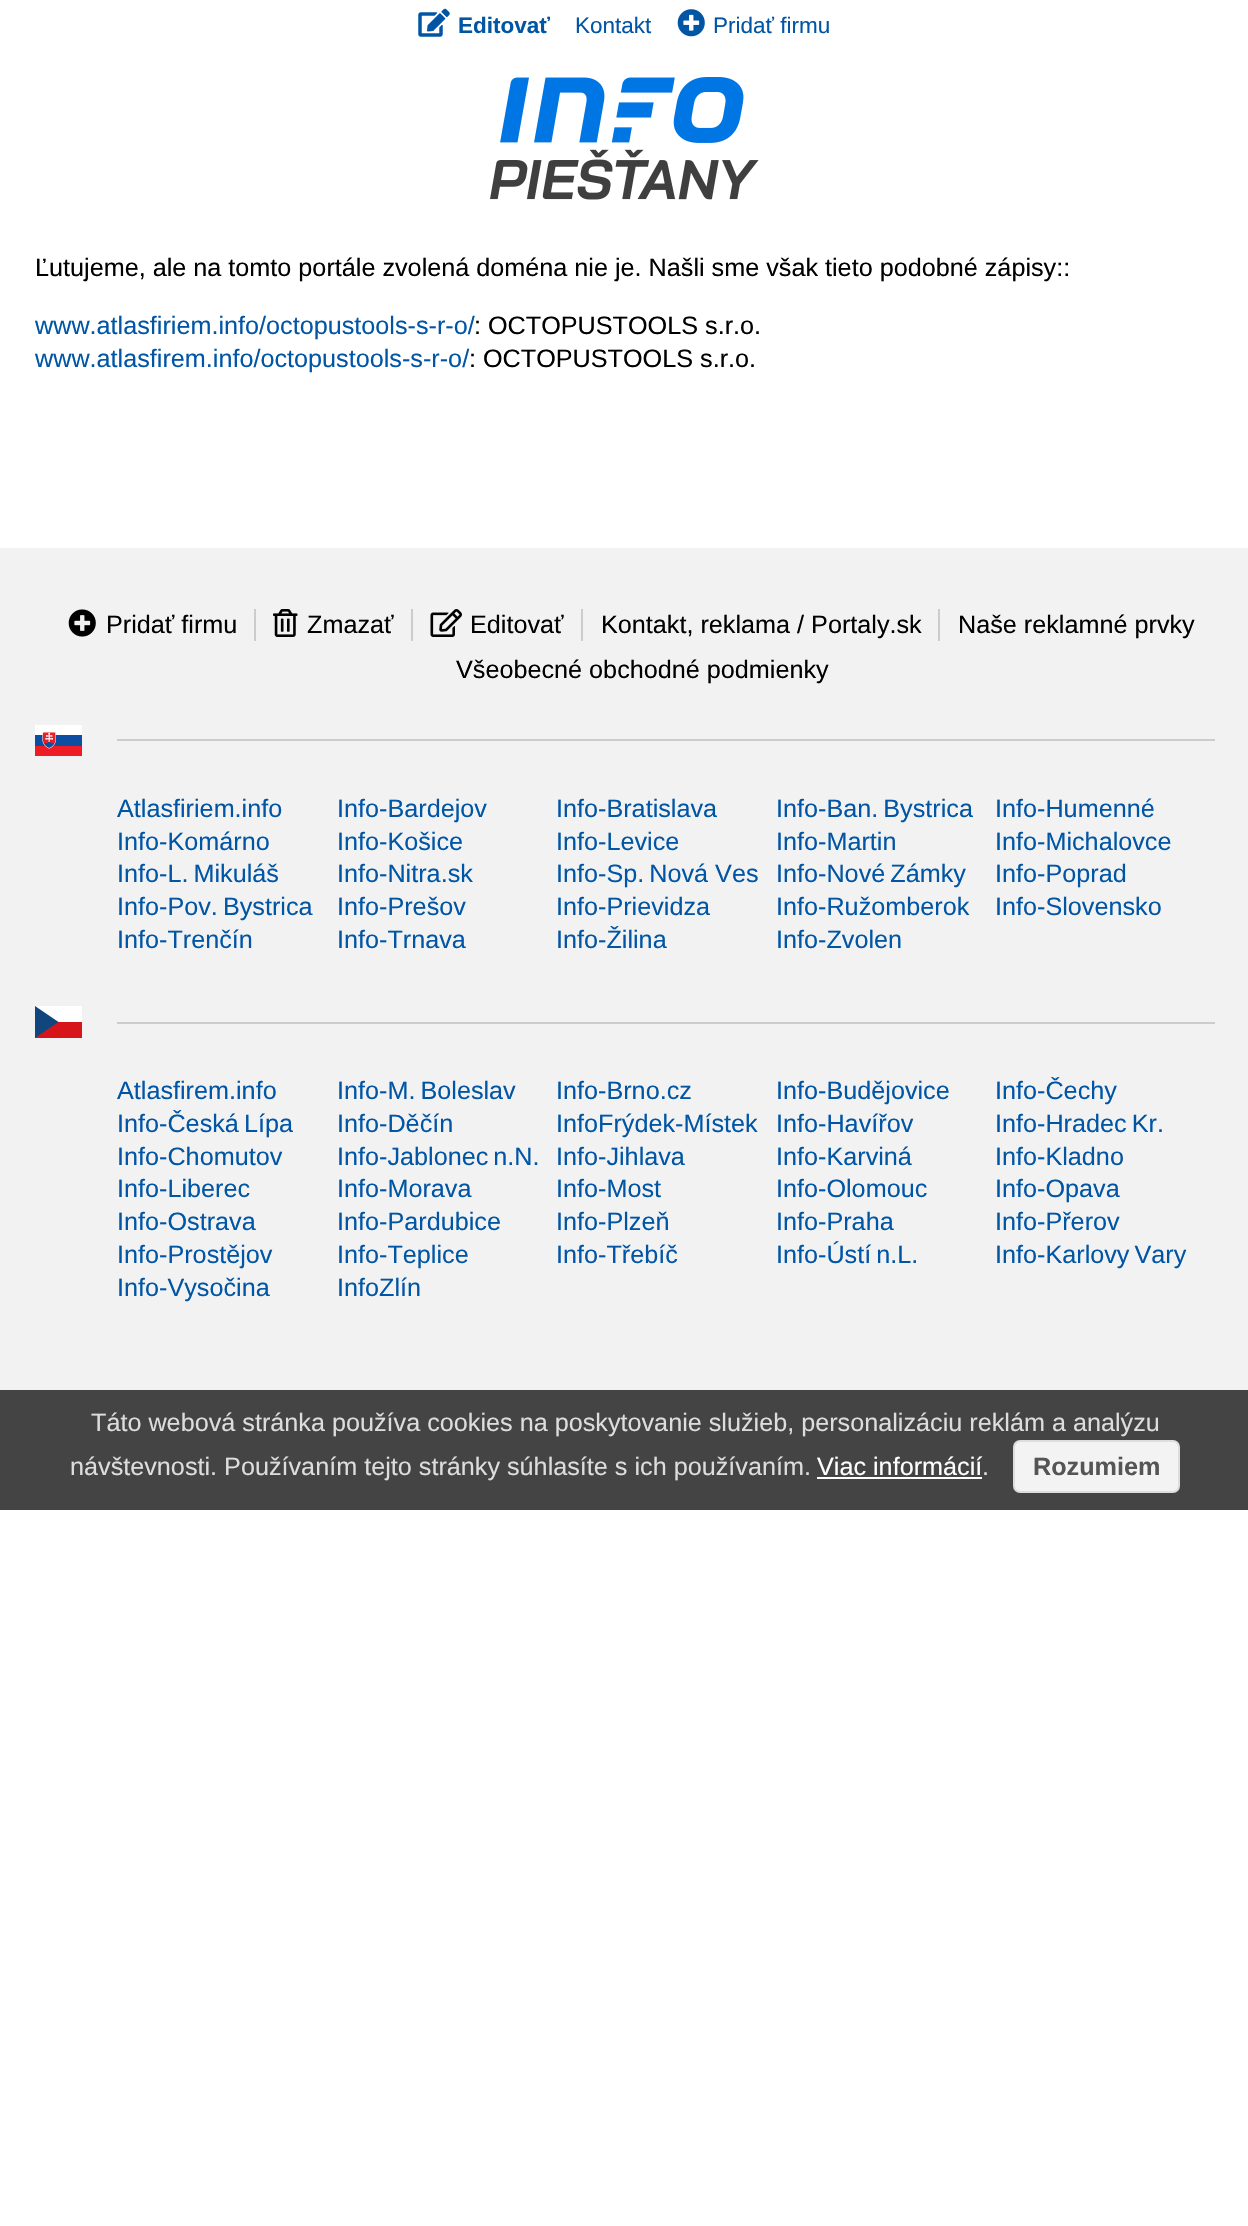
void draw(SkCanvas* c) {
SkPaint p;
p.setAntiAlias(true);
auto F=[&](const char* family, int weight, float size, bool italic = false){SkFontStyle style(weight, SkFontStyle::kNormal_Width,italic ? SkFontStyle::kItalic_Slant : SkFontStyle::kUpright_Slant);SkFont result(fontMgr->matchFamilyStyle(family, style), size);result.setSubpixel(true);return result;};
auto T=[&](const char* s, float x, float y, const SkFont& font){c->drawString(s, x, y, font, p);};
auto R=[&](float x, float y, float w, float h){c->drawRect(SkRect::MakeXYWH(x, y, w, h), p);};
auto I=[&](const char* path, float x, float y, float w, float h){auto image = SkImages::DeferredFromEncodedData(SkData::MakeFromFileName(path));c->drawImageRect(image, SkRect::MakeXYWH(x, y, w, h), SkSamplingOptions());};
auto P=[&](const char* data, bool evenOdd = false){SkPath result = *SkParsePath::FromSVGString(data);if (evenOdd) result.setFillType(SkPathFillType::kEvenOdd);return result;};
c->clear(0xffffffff);
I("1.png",418,8,32,29);
auto f1 = F("Liberation Sans",700,22.5);
p.setColor(0xff0055a5);
T("Editovať",458,33,f1);
auto f2 = F("Liberation Sans",400,22.5);
T("Kontakt",575,33,f2);
I("2.png",677,9,28,28);
T("Pridať firmu",713,33,f2);
I("3.png",490,77,269,123);
auto f3 = F("Liberation Sans",400,25.2);
p.setColor(0xff000000);
T("Ľutujeme, ale na tomto portále zvolená doména nie je. Našli sme však tieto podobné zápisy::",35,276,f3);
p.setColor(0xff0055a5);
T("www.atlasfiriem.info/octopustools-s-r-o/",35,334,f3);
p.setColor(0xff000000);
T(": OCTOPUSTOOLS s.r.o.",474,334,f3);
p.setColor(0xff0055a5);
T("www.atlasfirem.info/octopustools-s-r-o/",35,367,f3);
p.setColor(0xff000000);
T(": OCTOPUSTOOLS s.r.o.",469,367,f3);
p.setColor(0xfff2f2f2);
R(0,548,1248,842);
I("4.png",68,609,28,28);
p.setColor(0xff000000);
T("Pridať firmu",106,633,f3);
p.setColor(0xffcccccc);
R(254,609,2,32);
I("5.png",273,609,25,28);
p.setColor(0xff000000);
T("Zmazať",307,633,f3);
p.setColor(0xffcccccc);
R(411,609,2,32);
I("6.png",430,609,32,28);
p.setColor(0xff000000);
T("Editovať",470,633,f3);
p.setColor(0xffcccccc);
R(581,609,2,32);
p.setColor(0xff000000);
T("Kontakt, reklama / Portaly.sk",601,633,f3);
p.setColor(0xffcccccc);
R(938,609,2,32);
p.setColor(0xff000000);
T("Naše reklamné prvky",958,633,f3);
T("Všeobecné obchodné podmienky",456,678,f3);
I("7.png",35,725,47,31);
p.setColor(0xffcccccc);
R(117,739,1098,2);
p.setColor(0xff0055a5);
T("Atlasfiriem.info",117,817,f3);
T("Info-Bardejov",337,817,f3);
T("Info-Bratislava",556,817,f3);
T("Info-Ban. Bystrica",776,817,f3);
T("Info-Humenné",995,817,f3);
T("Info-Komárno",117,850,f3);
T("Info-Košice",337,850,f3);
T("Info-Levice",556,850,f3);
T("Info-Martin",776,850,f3);
T("Info-Michalovce",995,850,f3);
T("Info-L. Mikuláš",117,882,f3);
T("Info-Nitra.sk",337,882,f3);
T("Info-Sp. Nová Ves",556,882,f3);
T("Info-Nové Zámky",776,882,f3);
T("Info-Poprad",995,882,f3);
T("Info-Pov. Bystrica",117,915,f3);
T("Info-Prešov",337,915,f3);
T("Info-Prievidza",556,915,f3);
T("Info-Ružomberok",776,915,f3);
T("Info-Slovensko",995,915,f3);
T("Info-Trenčín",117,948,f3);
T("Info-Trnava",337,948,f3);
T("Info-Žilina",556,948,f3);
T("Info-Zvolen",776,948,f3);
p.setColor(0xffd7141a);
R(35,1022,47,16);
p.setColor(0xffffffff);
R(35,1006,47,16);
p.setColor(0xff11457e);
c->drawPath(P("M58.5 1022l-23.5-16v32z"),p);
p.setColor(0xffcccccc);
R(117,1022,1098,2);
p.setColor(0xff0055a5);
T("Atlasfirem.info",117,1099,f3);
T("Info-M. Boleslav",337,1099,f3);
T("Info-Brno.cz",556,1099,f3);
T("Info-Budějovice",776,1099,f3);
T("Info-Čechy",995,1099,f3);
T("Info-Česká Lípa",117,1132,f3);
T("Info-Děčín",337,1132,f3);
T("InfoFrýdek-Místek",556,1132,f3);
T("Info-Havířov",776,1132,f3);
T("Info-Hradec Kr.",995,1132,f3);
T("Info-Chomutov",117,1165,f3);
T("Info-Jablonec n.N.",337,1165,f3);
T("Info-Jihlava",556,1165,f3);
T("Info-Karviná",776,1165,f3);
T("Info-Kladno",995,1165,f3);
T("Info-Liberec",117,1197,f3);
T("Info-Morava",337,1197,f3);
T("Info-Most",556,1197,f3);
T("Info-Olomouc",776,1197,f3);
T("Info-Opava",995,1197,f3);
T("Info-Ostrava",117,1230,f3);
T("Info-Pardubice",337,1230,f3);
T("Info-Plzeň",556,1230,f3);
T("Info-Praha",776,1230,f3);
T("Info-Přerov",995,1230,f3);
T("Info-Prostějov",117,1263,f3);
T("Info-Teplice",337,1263,f3);
T("Info-Třebíč",556,1263,f3);
T("Info-Ústí n.L.",776,1263,f3);
T("Info-Karlovy Vary",995,1263,f3);
T("Info-Vysočina",117,1296,f3);
T("InfoZlín",337,1296,f3);
p.setColor(0xff444444);
R(0,1390,1248,120);
p.setColor(0xffdddddd);
T("Táto webová stránka používa cookies na poskytovanie služieb, personalizáciu reklám a analýzu",91,1431,f3);
T("návštevnosti. Používaním tejto stránky súhlasíte s ich používaním.",70,1475,f3);
p.setColor(0xffffffff);
T("Viac informácií",817,1475,f3);
R(817,1477,165,2);
p.setColor(0xffdddddd);
T(".",982,1475,f3);
p.setColor(0xfff3f3f3);
c->drawRoundRect(SkRect::MakeXYWH(1014,1441,165,51),6,6,p);
p.setStroke(true);
p.setStrokeWidth(2);
p.setColor(0xffdddddd);
c->drawRoundRect(SkRect::MakeXYWH(1014,1441,165,51),6,6,p);
auto f4 = F("Liberation Sans",700,25.2);
p.setStroke(false);
p.setColor(0xff555555);
T("Rozumiem",1033,1475,f4);
}
